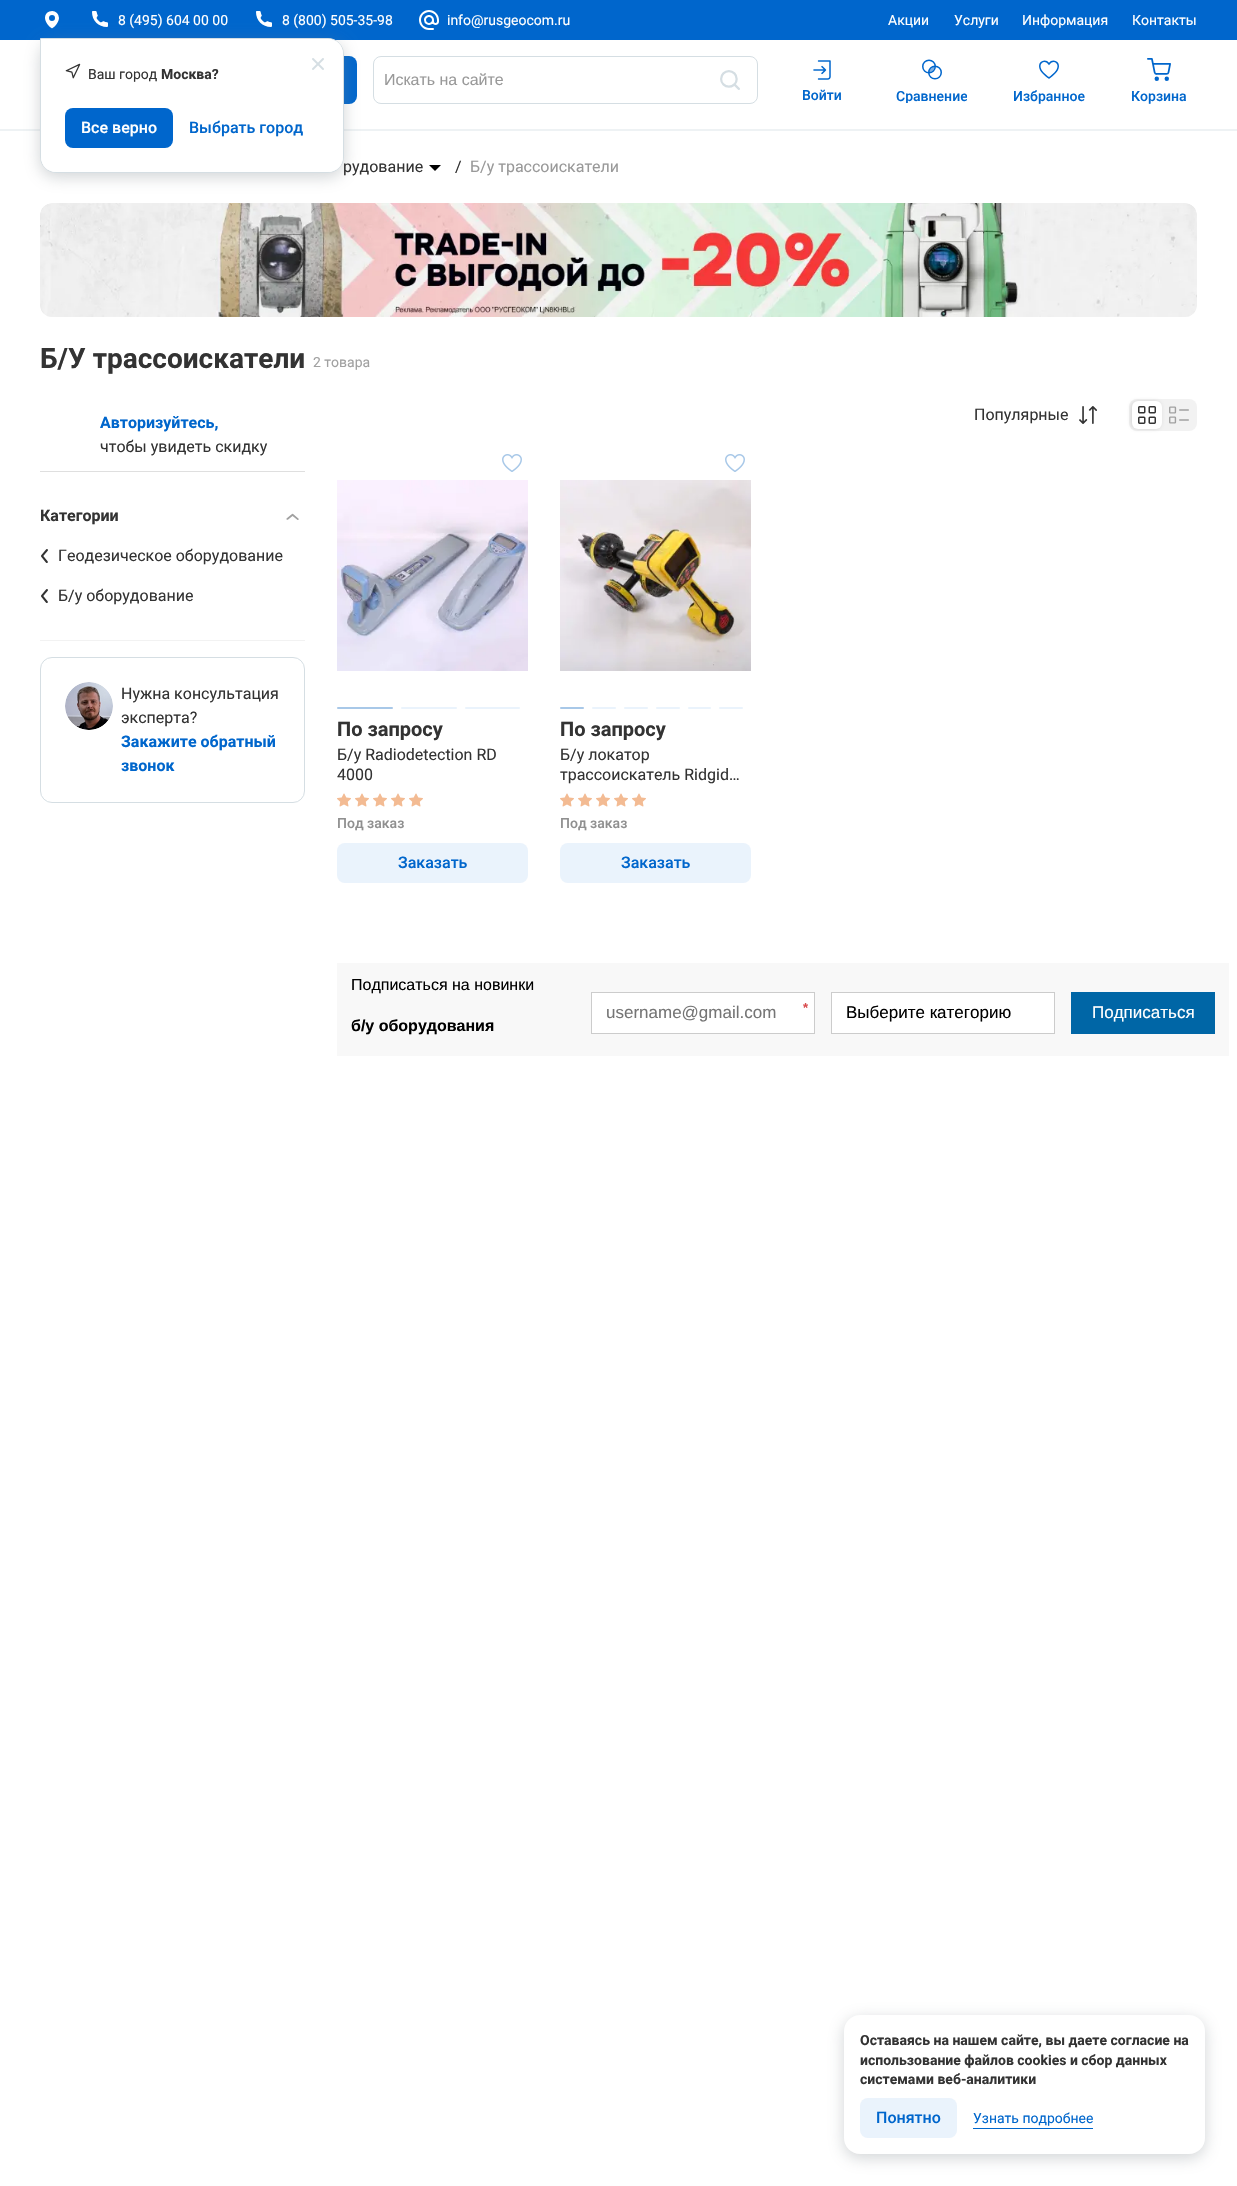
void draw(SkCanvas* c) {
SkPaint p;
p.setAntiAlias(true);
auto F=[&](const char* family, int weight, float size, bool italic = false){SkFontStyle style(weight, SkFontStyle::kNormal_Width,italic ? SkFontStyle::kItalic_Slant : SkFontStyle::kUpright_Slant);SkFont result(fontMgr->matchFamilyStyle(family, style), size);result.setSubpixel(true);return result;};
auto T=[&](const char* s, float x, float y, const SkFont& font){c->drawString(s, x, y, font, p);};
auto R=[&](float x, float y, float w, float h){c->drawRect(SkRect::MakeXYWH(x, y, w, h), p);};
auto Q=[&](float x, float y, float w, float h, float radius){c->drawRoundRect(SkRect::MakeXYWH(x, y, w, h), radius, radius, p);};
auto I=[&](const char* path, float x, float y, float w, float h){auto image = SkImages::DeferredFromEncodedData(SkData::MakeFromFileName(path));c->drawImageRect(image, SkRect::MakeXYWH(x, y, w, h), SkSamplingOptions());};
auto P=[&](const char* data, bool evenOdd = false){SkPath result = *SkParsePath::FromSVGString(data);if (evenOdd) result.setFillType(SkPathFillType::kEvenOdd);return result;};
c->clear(0xffffffff);
p.setColor(0xffeef2f4);
R(0,129,1237,2);
p.setColor(0xff0066cc);
R(0,0,1237,40);
I("1.png",92,11,16,16);
auto f1 = F("Roboto",400,14);
p.setColor(0xffffffff);
T("8 (495) 604 00 00",118,25,f1);
I("1.png",256,11,16,16);
T("8 (800) 505-35-98",282,25,f1);
I("2.png",419,10,20,20);
T("info@rusgeocom.ru",447,25,f1);
I("3.png",45,11,14,18);
p.setColor(0xff0066cc);
Q(219,56,138,48,8);
p.setColor(0x597c858a);
p.setMaskFilter(SkMaskFilter::MakeBlur(kNormal_SkBlurStyle, 8));
c->drawRoundRect(SkRect::MakeXYWH(40,42,304,135),16,16,p);
p.setMaskFilter(nullptr);
auto f2 = F("Roboto",400,16);
p.setColor(0xff333333);
T("рудование",343,172,f2);
p.setColor(0xffffffff);
c->drawPath(P("M40.5 38.5h287.5c8.5 0 15.5 7 15.5 15.5v103c0 8.5-7 15.5-15.5 15.5h-272c-8.5 0-15.5-7-15.5-15.5z"),p);
p.setStroke(true);
p.setStrokeWidth(1);
p.setColor(0xffd5dee3);
c->drawPath(P("M40.5 38.5h287.5c8.5 0 15.5 7 15.5 15.5v103c0 8.5-7 15.5-15.5 15.5h-272c-8.5 0-15.5-7-15.5-15.5z"),p);
p.setStroke(false);
p.setColor(0xffffffff);
c->drawPath(P("M53 39h275c8.5 0 15 6.5 15 15v103c0 8.5-6.5 15-15 15h-272c-8.5 0-15-6.5-15-15v-106c0-6.5 5.5-12 12-12z"),p);
I("4.png",312,58,12,12);
I("5.png",65,63,16,16);
p.setColor(0xff333333);
T("Ваш город",88,79,f1);
auto f3 = F("Roboto",700,14);
T("Москва?",161,79,f3);
p.setColor(0xff0066cc);
Q(65,108,108,40,8);
auto f4 = F("Roboto",500,16);
p.setColor(0xffffffff);
T("Все верно",81,133,f4);
p.setColor(0xff0066cc);
T("Выбрать город",189,133,f4);
p.setColor(0xffffffff);
T("Акции",888,25,f1);
T("Услуги",954,25,f1);
T("Информация",1022,25,f1);
T("Контакты",1132,25,f1);
p.setStroke(true);
p.setColor(0xffd5dee3);
c->drawRoundRect(SkRect::MakeXYWH(373.5,56.5,384,47),7.5,7.5,p);
auto f5 = F("Liberation Sans",400,16);
p.setStroke(false);
p.setColor(0xff999999);
T("Искать на сайте",384,85,f5);
I("6.png",720,70,20,20);
I("7.png",813,60,18,20);
auto f6 = F("Roboto",500,14);
p.setColor(0xff0066cc);
T("Войти",802,100,f6);
I("8.png",922,59,20,21);
c->save();
c->clipRect(SkRect::MakeXYWH(896,89,71,14));
T("Сравнение",896,101,f6);
c->restore();
I("9.png",1039,60,20,19);
T("Избранное",1013,101,f6);
I("10.png",1147,58,24,23);
T("Корзина",1131,101,f6);
I("11.png",429,165,12,6);
p.setColor(0xff333333);
T("/",455,172,f2);
p.setColor(0xff999999);
T("Б/у трассоискатели",470,172,f2);
I("12.png",40,203,1157,114);
auto f7 = F("Roboto",700,28);
p.setColor(0xff333333);
T("Б/У трассоискатели",40,368,f7);
p.setColor(0xffa1a1a1);
T("2 товара",313,367,f1);
p.setColor(0xfff2f2f2);
R(40,640,265,1);
p.setColor(0xffdfdfdf);
R(40,471,265,1);
auto f8 = F("Roboto",700,16);
p.setColor(0xff0066cc);
T("Авторизуйтесь,",100,428,f8);
p.setColor(0xff333333);
T("чтобы увидеть скидку",100,452,f2);
T("Категории",40,521,f8);
I("13.png",286,513,13,7);
I("14.png",41,549,7,14);
T("Геодезическое оборудование",58,561,f2);
I("14.png",41,589,7,14);
T("Б/у оборудование",58,601,f2);
p.setStroke(true);
p.setColor(0xffd5dee3);
c->drawRoundRect(SkRect::MakeXYWH(40.5,657.5,264,145),11.5,11.5,p);
I("15.png",65,682,48,48);
p.setStroke(false);
p.setColor(0xff333333);
T("Нужна консультация",121,699,f2);
T("эксперта?",121,723,f2);
p.setColor(0xff0066cc);
T("Закажите обратный",121,747,f8);
T("звонок",121,771,f8);
p.setColor(0xff333333);
T("Популярные",974,420,f2);
I("16.png",1079,406,18,18);
p.setColor(0xfff2f2f2);
Q(1129,399,68,32,8);
p.setColor(0x40757575);
p.setMaskFilter(SkMaskFilter::MakeBlur(kNormal_SkBlurStyle, 2));
c->drawRoundRect(SkRect::MakeXYWH(1131,401,30,28),6,6,p);
p.setMaskFilter(nullptr);
p.setColor(0xffffffff);
Q(1132,401,30,28,6);
I("17.png",1138,406,18,18);
I("18.png",1169,406,20,18);
I("19.png",502,454,20,18);
I("20.png",337,480,191,191);
p.setColor(0xffa8c8e8);
Q(337,707,56,2,1);
p.setColor(0xffeaf3fc);
Q(401,707,56,2,1);
Q(465,707,55,2,1);
auto f9 = F("Roboto",700,20);
p.setColor(0xff333333);
T("По запросу",337,736,f9);
T("Б/у Radiodetection RD",337,760,f2);
T("4000",337,780,f2);
I("21.png",337,793,14,14);
I("21.png",355,793,14,14);
I("21.png",373,793,14,14);
I("21.png",391,793,14,14);
I("21.png",409,793,14,14);
p.setColor(0xff8f8f8f);
T("Под заказ",337,828,f6);
p.setColor(0xffeaf3fc);
Q(337,843,191,40,8);
p.setColor(0xff0066cc);
T("Заказать",398,868,f4);
I("19.png",725,454,20,18);
I("22.png",560,480,191,191);
p.setColor(0xffa8c8e8);
Q(560,707,24,2,1);
p.setColor(0xffeaf3fc);
Q(592,707,24,2,1);
Q(624,707,24,2,1);
Q(656,707,24,2,1);
Q(688,707,23,2,1);
Q(719,707,24,2,1);
p.setColor(0xff333333);
T("По запросу",560,736,f9);
T("Б/у локатор",560,760,f2);
T("трассоискатель Ridgid…",560,780,f2);
I("21.png",560,793,14,14);
I("21.png",578,793,14,14);
I("21.png",596,793,14,14);
I("21.png",614,793,14,14);
I("21.png",632,793,14,14);
p.setColor(0xff8f8f8f);
T("Под заказ",560,828,f6);
p.setColor(0xffeaf3fc);
Q(560,843,191,40,8);
p.setColor(0xff0066cc);
T("Заказать",621,868,f4);
p.setColor(0xfff8f8f8);
R(337,963,892,93);
p.setColor(0xff000000);
T("Подписаться на новинки",351,990,f5);
auto f10 = F("Liberation Sans",700,16);
T("б/у оборудования",351,1031,f10);
p.setColor(0xffffffff);
c->drawRect(SkRect::MakeXYWH(591.5,992.5,223,41),p);
p.setStroke(true);
p.setColor(0xffcccccc);
c->drawRect(SkRect::MakeXYWH(591.5,992.5,223,41),p);
auto f11 = F("Liberation Sans",400,17);
p.setStroke(false);
p.setColor(0xff757575);
T("username@gmail.com",606,1018,f11);
auto f12 = F("Liberation Sans",700,13);
p.setColor(0xffd94b4d);
T("*",803,1012,f12);
p.setColor(0xffffffff);
c->drawRect(SkRect::MakeXYWH(831.5,992.5,223,41),p);
p.setStroke(true);
p.setColor(0xffcccccc);
c->drawRect(SkRect::MakeXYWH(831.5,992.5,223,41),p);
p.setStroke(false);
p.setColor(0xff000000);
T("Выберите категорию",846,1018,f11);
p.setColor(0xff0066a6);
R(1071,992,144,42);
p.setColor(0xffffffff);
T("Подписаться",1092,1018,f11);
p.setColor(0x597c858a);
p.setMaskFilter(SkMaskFilter::MakeBlur(kNormal_SkBlurStyle, 8));
c->drawRoundRect(SkRect::MakeXYWH(844,2019,361,139),16,16,p);
p.setMaskFilter(nullptr);
p.setColor(0xffffffff);
Q(844,2015,361,139,16);
p.setColor(0xff333333);
T("Оставаясь на нашем сайте, вы даете согласие на",860,2045,f3);
T("использование файлов cookies и сбор данных",860,2065,f3);
T("системами веб-аналитики",860,2084,f3);
p.setColor(0xffeaf3fc);
Q(860,2098,97,40,8);
p.setColor(0xff0066cc);
T("Понятно",876,2123,f4);
T("Узнать подробнее",973,2123,f1);
R(973,2128,120,1);
}
